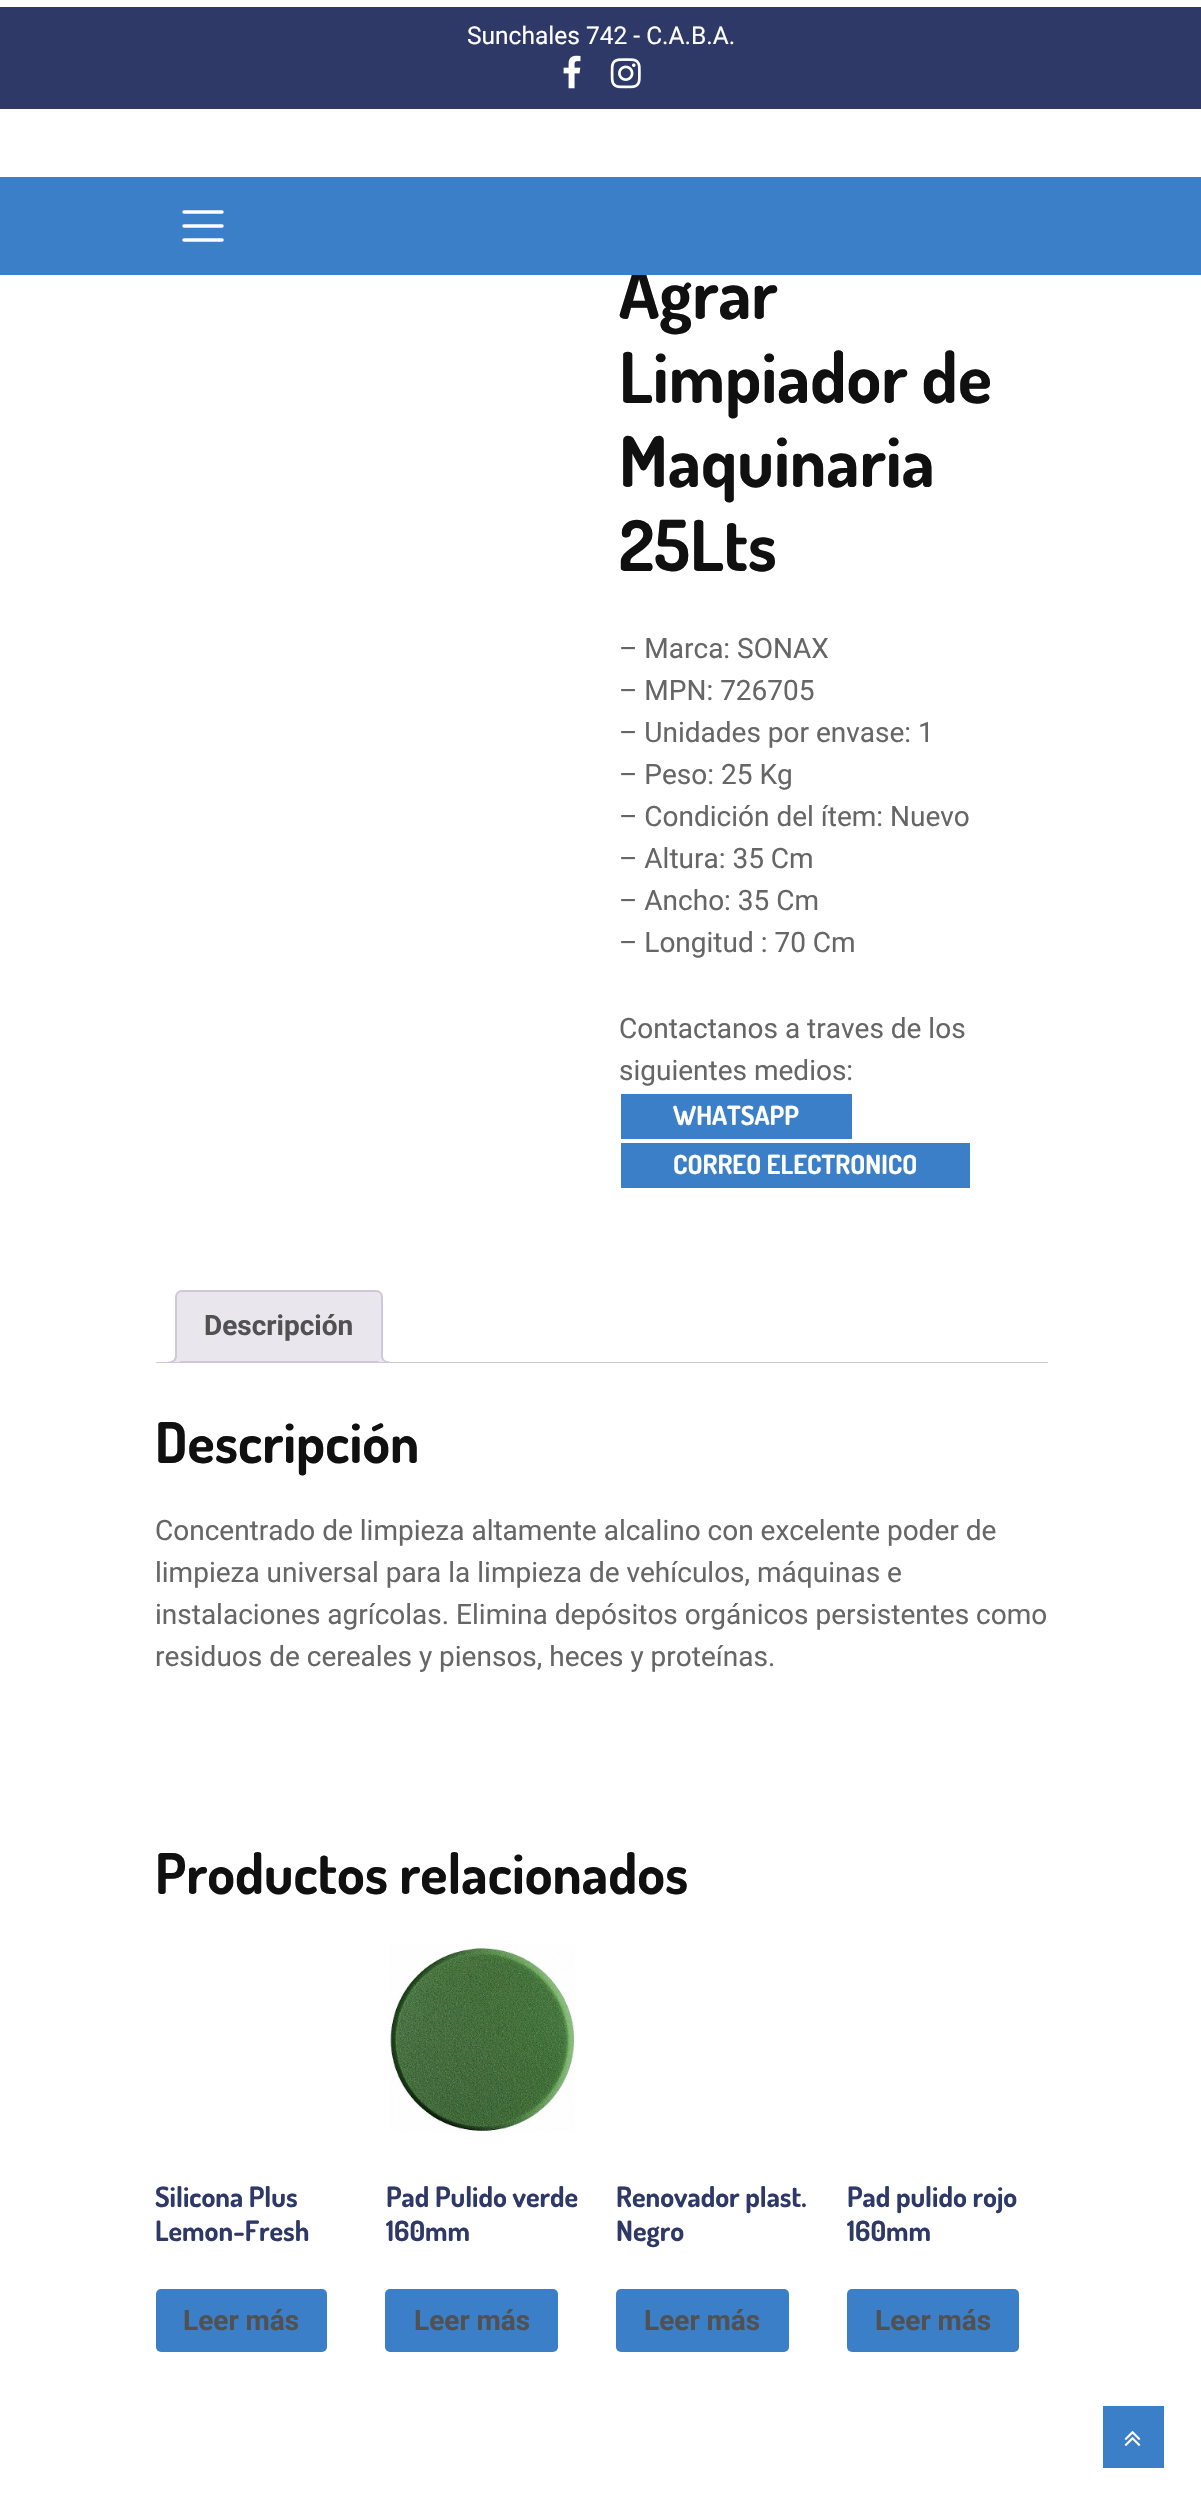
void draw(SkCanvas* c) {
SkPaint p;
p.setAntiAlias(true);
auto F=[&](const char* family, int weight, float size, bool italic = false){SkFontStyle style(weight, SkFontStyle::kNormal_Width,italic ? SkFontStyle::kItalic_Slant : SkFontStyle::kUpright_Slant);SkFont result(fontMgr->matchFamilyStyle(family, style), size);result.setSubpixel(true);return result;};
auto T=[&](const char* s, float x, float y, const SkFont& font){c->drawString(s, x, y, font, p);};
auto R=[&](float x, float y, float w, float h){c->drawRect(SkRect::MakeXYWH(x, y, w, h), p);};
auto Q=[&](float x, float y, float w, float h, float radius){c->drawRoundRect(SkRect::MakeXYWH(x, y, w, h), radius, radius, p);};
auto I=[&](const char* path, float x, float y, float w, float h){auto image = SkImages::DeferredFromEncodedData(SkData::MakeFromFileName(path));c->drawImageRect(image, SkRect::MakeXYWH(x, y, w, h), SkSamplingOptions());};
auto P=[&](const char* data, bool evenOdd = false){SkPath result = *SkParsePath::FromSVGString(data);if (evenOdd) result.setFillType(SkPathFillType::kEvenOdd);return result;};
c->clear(0xffffffff);
p.setColor(0xff2f3967);
R(0,7,1201,102);
auto f1 = F("Roboto",400,24.5);
p.setColor(0xffffffff);
T("Sunchales 742 - C.A.B.A.",467,44,f1);
I("1.png",563,55,18,34);
I("2.png",610,58,31,31);
auto f2 = F("Dosis",700,70);
p.setColor(0xff101010);
T("Agrar",619,319,f2);
p.setColor(0xff3a7fc7);
R(0,177,1201,98);
p.setStroke(true);
p.setStrokeWidth(3.5);
p.setStrokeCap(SkPaint::kRound_Cap);
p.setColor(0xffffffff);
c->drawPath(P("M184 212h38m-38 14h38m-38 14h38"),p);
p.setStroke(false);
p.setColor(0xff101010);
T("Limpiador de",619,403,f2);
T("Maquinaria",619,487,f2);
T("25Lts",619,571,f2);
auto f3 = F("Roboto",400,28);
p.setColor(0xff666666);
T("– Marca: SONAX",619,658,f3);
T("– MPN: 726705",619,700,f3);
T("– Unidades por envase: 1",619,742,f3);
T("– Peso: 25 Kg",619,784,f3);
T("– Condición del ítem: Nuevo",619,826,f3);
T("– Altura: 35 Cm",619,868,f3);
T("– Ancho: 35 Cm",619,910,f3);
T("– Longitud : 70 Cm",619,952,f3);
T("Contactanos a traves de los",619,1038,f3);
T("siguientes medios:",619,1080,f3);
c->save();
c->clipRect(SkRect::MakeXYWH(621,1094,231,45));
p.setColor(0xff3a7fc7);
c->drawPath(P("M621 1059v115h213l18-30v-85z",true),p);
c->restore();
auto f4 = F("Dosis",700,26.25);
p.setColor(0xffffffff);
T("WHATSAPP",673,1125,f4);
c->save();
c->clipRect(SkRect::MakeXYWH(621,1143,349,45));
p.setColor(0xff3a7fc7);
c->drawPath(P("M621 1078v175h322l28-46v-129z",true),p);
c->restore();
p.setColor(0xffffffff);
T("CORREO ELECTRONICO",673,1174,f4);
p.setColor(0xffe9e6ed);
c->drawPath(P("M182 1291h194c3.5 0 6 2.5 6 6v65h-206v-65c0-3.5 2.5-6 6-6z"),p);
p.setStroke(true);
p.setStrokeWidth(2);
p.setStrokeCap(SkPaint::kButt_Cap);
p.setColor(0xffcfc8d8);
c->drawPath(P("M182 1291h194c3.5 0 6 2.5 6 6v65h-206v-65c0-3.5 2.5-6 6-6z"),p);
auto f5 = F("Roboto",700,28);
p.setStroke(false);
p.setColor(0xff515151);
T("Descripción",204,1335,f5);
c->save();
c->clipRect(SkRect::MakeXYWH(156,1290,892,73));
p.setColor(0xffe9e6ed);
c->drawPath(P("M172 1363v4c6 0 8-3.5 8-9h-3.5c-.5 2.5-2.5 4-4.5 5z"),p);
c->restore();
p.setColor(0xffcfc8d8);
c->drawPath(P("M168 1354.5h9c0 6-3 8.5-9 8.5zm0 0h7c0 5-2 7-7 7z",true),p);
c->save();
c->clipRect(SkRect::MakeXYWH(156,1290,892,73));
p.setColor(0xffe9e6ed);
c->drawPath(P("M378 1358c0 6.5 2.5 9 9 9v-4c-2.5-.5-4.5-2.5-5.5-5z"),p);
c->restore();
p.setColor(0xffcfc8d8);
c->drawPath(P("M381.5 1354.5h8.5v8.5c-4 0-8.5-1.5-8.5-7zm1.5 0h7v7c-3 0-7-1-7-5.5z",true),p);
R(156,1362,892,1);
auto f6 = F("Dosis",700,56);
p.setColor(0xff101010);
T("Descripción",155,1463,f6);
p.setColor(0xff666666);
T("Concentrado de limpieza altamente alcalino con excelente poder de",155,1540,f3);
T("limpieza universal para la limpieza de vehículos, máquinas e",155,1582,f3);
T("instalaciones agrícolas. Elimina depósitos orgánicos persistentes como",155,1624,f3);
T("residuos de cereales y piensos, heces y proteínas.",155,1666,f3);
p.setColor(0xff101010);
T("Productos relacionados",155,1894,f6);
auto f7 = F("Dosis",700,28);
p.setColor(0xff2f3967);
T("Silicona Plus",155,2207,f7);
T("Lemon-Fresh",155,2241,f7);
p.setColor(0xff3a7fc7);
Q(156,2289,171,63,5);
p.setColor(0xff515151);
T("Leer más",183,2330,f5);
I("3.png",389,1944,186,187);
p.setColor(0xff2f3967);
T("Pad Pulido verde",386,2207,f7);
T("160mm",386,2241,f7);
p.setColor(0xff3a7fc7);
Q(385,2289,173,63,5);
p.setColor(0xff515151);
T("Leer más",414,2330,f5);
p.setColor(0xff2f3967);
T("Renovador plast.",616,2207,f7);
T("Negro",616,2241,f7);
p.setColor(0xff3a7fc7);
Q(616,2289,173,63,5);
p.setColor(0xff515151);
T("Leer más",644,2330,f5);
p.setColor(0xff2f3967);
T("Pad pulido rojo",847,2207,f7);
T("160mm",847,2241,f7);
p.setColor(0xff3a7fc7);
Q(847,2289,172,63,5);
p.setColor(0xff515151);
T("Leer más",875,2330,f5);
p.setColor(0xff3a7fc7);
R(1103,2406,61,62);
I("4.png",1124,2431,17,15);
}
